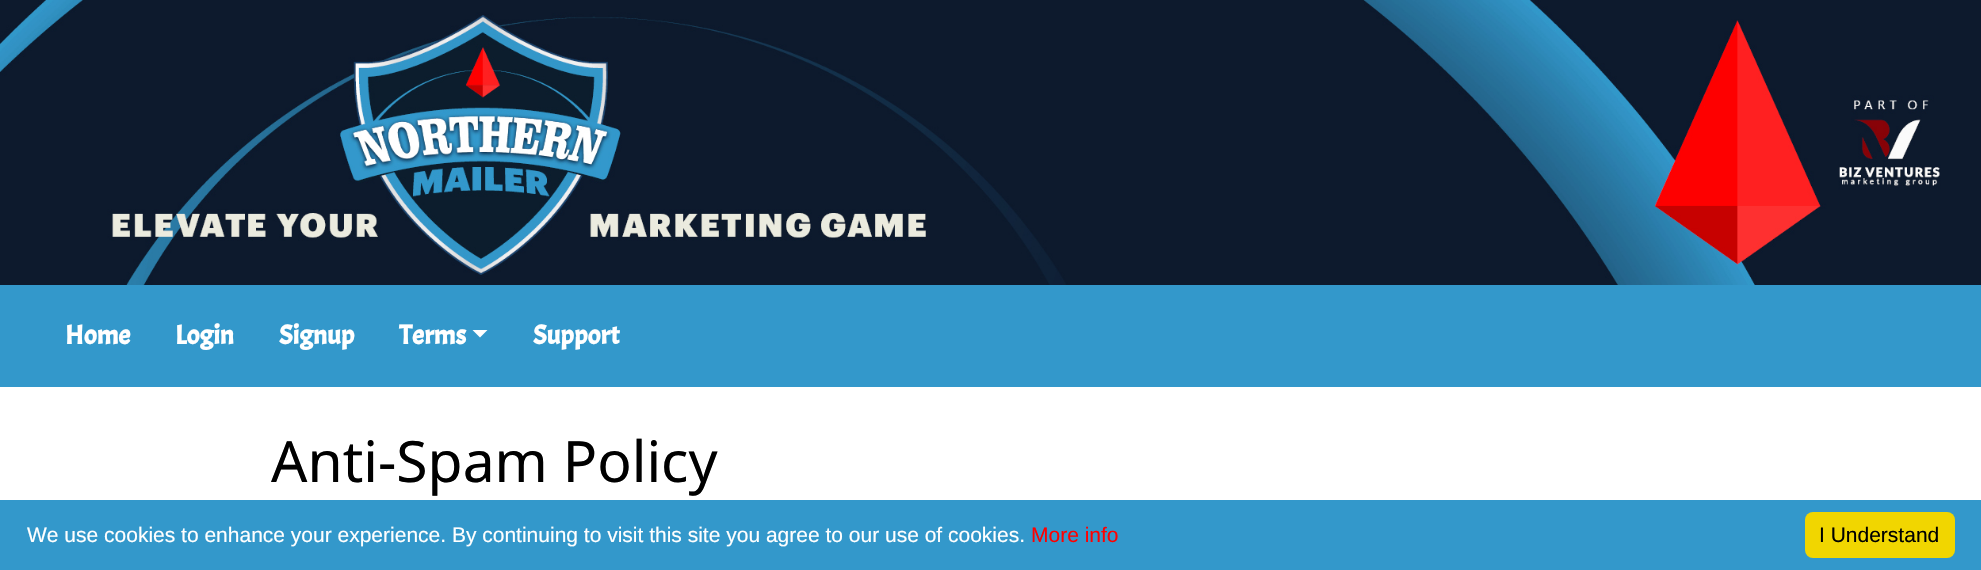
void draw(SkCanvas* c) {
SkPaint p;
p.setAntiAlias(true);
auto F=[&](const char* family, int weight, float size, bool italic = false){SkFontStyle style(weight, SkFontStyle::kNormal_Width,italic ? SkFontStyle::kItalic_Slant : SkFontStyle::kUpright_Slant);SkFont result(fontMgr->matchFamilyStyle(family, style), size);result.setSubpixel(true);return result;};
auto T=[&](const char* s, float x, float y, const SkFont& font){c->drawString(s, x, y, font, p);};
auto R=[&](float x, float y, float w, float h){c->drawRect(SkRect::MakeXYWH(x, y, w, h), p);};
auto Q=[&](float x, float y, float w, float h, float radius){c->drawRoundRect(SkRect::MakeXYWH(x, y, w, h), radius, radius, p);};
auto I=[&](const char* path, float x, float y, float w, float h){auto image = SkImages::DeferredFromEncodedData(SkData::MakeFromFileName(path));c->drawImageRect(image, SkRect::MakeXYWH(x, y, w, h), SkSamplingOptions());};
auto P=[&](const char* data, bool evenOdd = false){SkPath result = *SkParsePath::FromSVGString(data);if (evenOdd) result.setFillType(SkPathFillType::kEvenOdd);return result;};
c->clear(0xffffffff);
I("1.png",0,0,1981,285);
p.setColor(0xff3398cb);
R(0,285,1981,102);
auto f1 = F("Acme",700,27);
p.setColor(0xffffffff);
T("Home",65,344,f1);
T("Login",175,344,f1);
T("Signup",279,344,f1);
T("Terms",399,344,f1);
c->drawPath(P("M472.5 330h15l-7.5 7.5z"),p);
T("Support",533,344,f1);
auto f2 = F("Noto Sans",400,57);
p.setColor(0xff000000);
T("Anti-Spam Policy",271,482,f2);
p.setColor(0xff3398cb);
R(0,500,1981,70);
auto f3 = F("Liberation Sans",400,21);
p.setColor(0xffffffff);
T("We use cookies to enhance your experience. By continuing to visit this site you agree to our use of cookies.",27,542,f3);
p.setColor(0xffff0000);
T("More info",1031,542,f3);
p.setColor(0xfff1d600);
Q(1805,512,150,46,8);
p.setColor(0xff000000);
T("I Understand",1819,542,f3);
}
